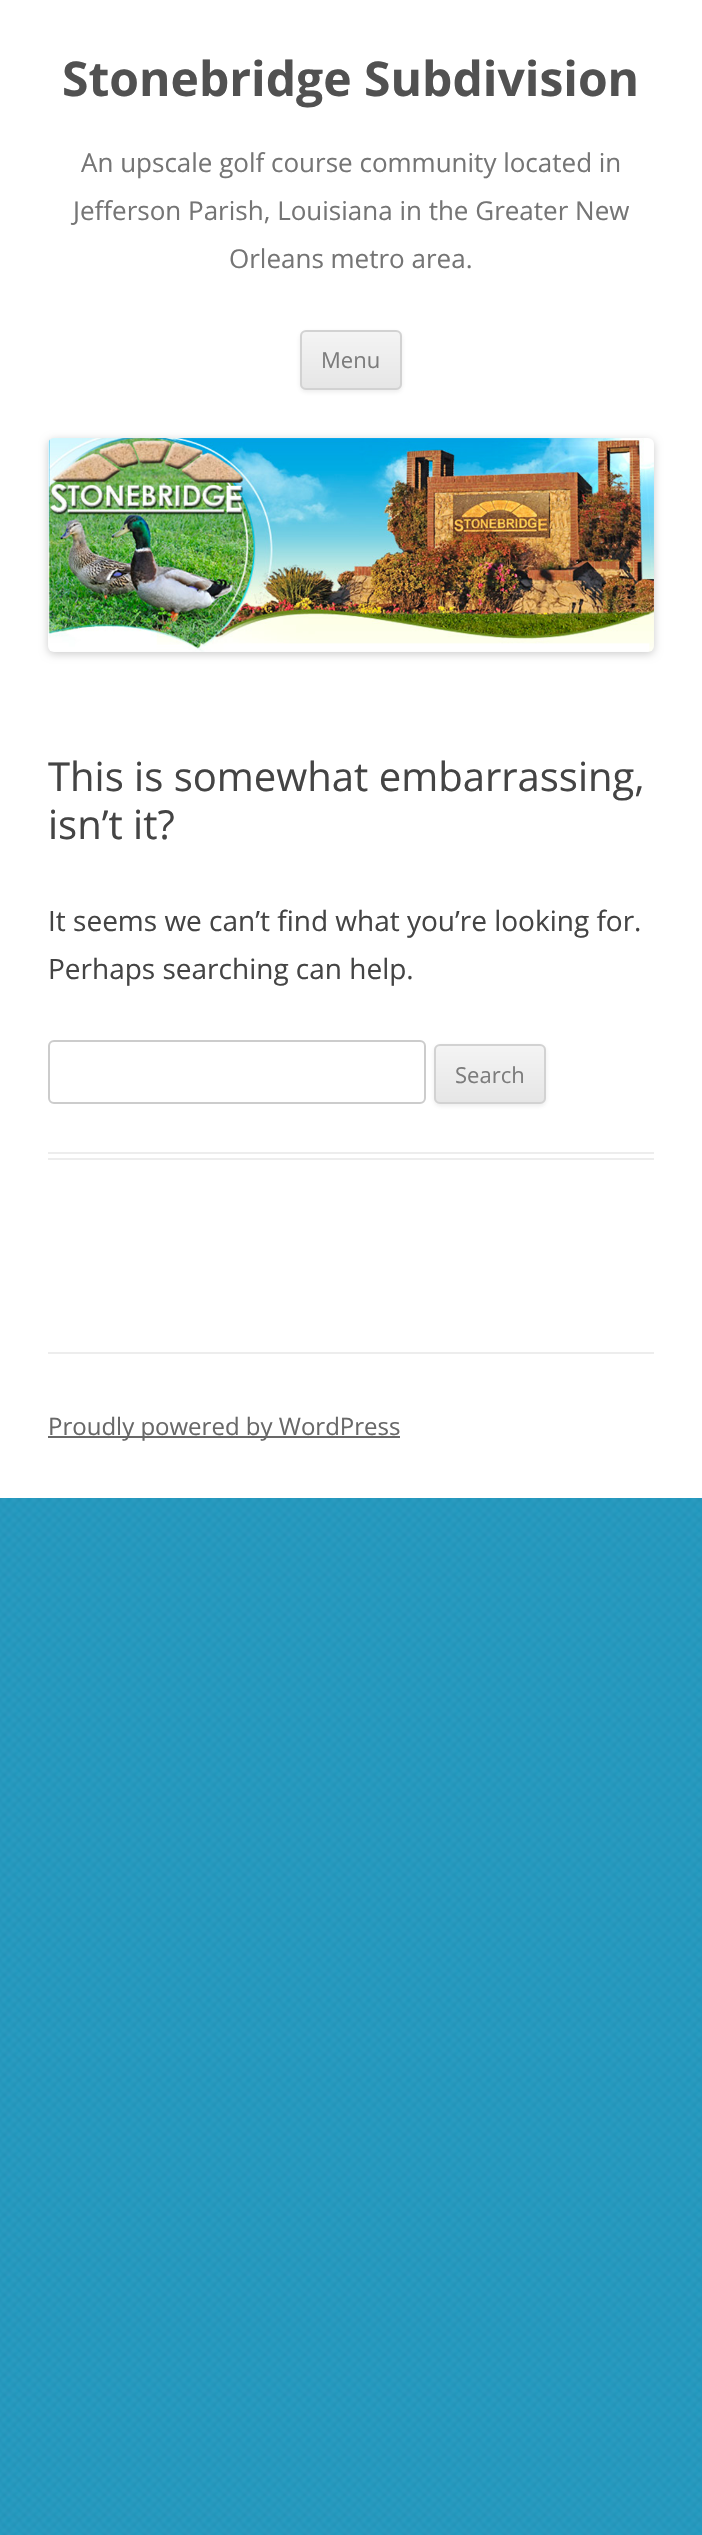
void draw(SkCanvas* c) {
SkPaint p;
p.setAntiAlias(true);
auto F=[&](const char* family, int weight, float size, bool italic = false){SkFontStyle style(weight, SkFontStyle::kNormal_Width,italic ? SkFontStyle::kItalic_Slant : SkFontStyle::kUpright_Slant);SkFont result(fontMgr->matchFamilyStyle(family, style), size);result.setSubpixel(true);return result;};
auto T=[&](const char* s, float x, float y, const SkFont& font){c->drawString(s, x, y, font, p);};
auto R=[&](float x, float y, float w, float h){c->drawRect(SkRect::MakeXYWH(x, y, w, h), p);};
auto I=[&](const char* path, float x, float y, float w, float h){auto image = SkImages::DeferredFromEncodedData(SkData::MakeFromFileName(path));c->drawImageRect(image, SkRect::MakeXYWH(x, y, w, h), SkSamplingOptions());};
auto P=[&](const char* data, bool evenOdd = false){SkPath result = *SkParsePath::FromSVGString(data);if (evenOdd) result.setFillType(SkPathFillType::kEvenOdd);return result;};
c->clear(0xffffffff);
I("1.png",0,1498,702,1037);
auto f1 = F("Open Sans",700,48);
p.setColor(0xff515151);
T("Stonebridge Subdivision",62,96,f1);
auto f2 = F("Open Sans",400,26);
p.setColor(0xff757575);
T("An upscale golf course community located in",81,172,f2);
T("Jefferson Parish, Louisiana in the Greater New",73,220,f2);
T("Orleans metro area.",229,268,f2);
p.setColor(0x1a404040);
p.setMaskFilter(SkMaskFilter::MakeBlur(kNormal_SkBlurStyle, 2));
c->drawRoundRect(SkRect::MakeXYWH(300,332,102,60),6,6,p);
p.setMaskFilter(nullptr);
c->save();
c->clipPath(P("M306 330h90c3.5 0 6 2.5 6 6v48c0 3.5-2.5 6-6 6h-90c-3.5 0-6-2.5-6-6v-48c0-3.5 2.5-6 6-6z"),true);
{
const SkColor colors[] = {0xfff4f4f4,0xffe6e6e6};
const float stops[] = {0,1};
const SkPoint ends[] = {{351,332}, {351,388}};
p.setShader(SkGradientShader::MakeLinear(ends, colors, stops, 2, SkTileMode::kClamp));
p.setAlpha(255);
}
R(300,332,102,56);
c->restore();
p.setStroke(true);
p.setStrokeWidth(2);
p.setShader(nullptr);
p.setColor(0xffd2d2d2);
c->drawRoundRect(SkRect::MakeXYWH(301,331,100,58),5,5,p);
auto f3 = F("Open Sans",400,22);
p.setStroke(false);
p.setColor(0xff7c7c7c);
T("Menu",321,368,f3);
p.setColor(0x33000000);
p.setMaskFilter(SkMaskFilter::MakeBlur(kNormal_SkBlurStyle, 4));
c->drawRoundRect(SkRect::MakeXYWH(48,440,606,214),6,6,p);
p.setMaskFilter(nullptr);
I("2.png",48,438,606,214);
p.setColor(0xffededed);
R(48,1152,606,2);
R(48,1158,606,2);
auto f4 = F("Open Sans",400,40);
p.setColor(0xff444444);
T("This is somewhat embarrassing,",48,791,f4);
T("isn’t it?",48,839,f4);
auto f5 = F("Open Sans",400,28);
T("It seems we can’t find what you’re looking for.",48,931,f5);
T("Perhaps searching can help.",48,979,f5);
p.setStroke(true);
p.setColor(0xffcccccc);
c->drawRoundRect(SkRect::MakeXYWH(49,1041,376,62),5,5,p);
p.setStroke(false);
p.setColor(0x1a404040);
p.setMaskFilter(SkMaskFilter::MakeBlur(kNormal_SkBlurStyle, 2));
c->drawRoundRect(SkRect::MakeXYWH(434,1046,112,60),6,6,p);
p.setMaskFilter(nullptr);
c->save();
c->clipPath(P("M440 1044h100c3.5 0 6 2.5 6 6v48c0 3.5-2.5 6-6 6h-100c-3.5 0-6-2.5-6-6v-48c0-3.5 2.5-6 6-6z"),true);
{
const SkColor colors[] = {0xfff4f4f4,0xffe6e6e6};
const float stops[] = {0,1};
const SkPoint ends[] = {{490,1046}, {490,1102}};
p.setShader(SkGradientShader::MakeLinear(ends, colors, stops, 2, SkTileMode::kClamp));
p.setAlpha(255);
}
R(434,1046,112,56);
c->restore();
p.setStroke(true);
p.setShader(nullptr);
p.setColor(0xffd2d2d2);
c->drawRoundRect(SkRect::MakeXYWH(435,1045,110,58),5,5,p);
p.setStroke(false);
p.setColor(0xff7c7c7c);
T("Search",455,1083,f3);
p.setColor(0xffededed);
R(48,1352,606,2);
p.setColor(0xff686868);
R(48,1436,352,2);
auto f6 = F("Open Sans",400,24);
T("Proudly powered by WordPress",48,1435,f6);
}
